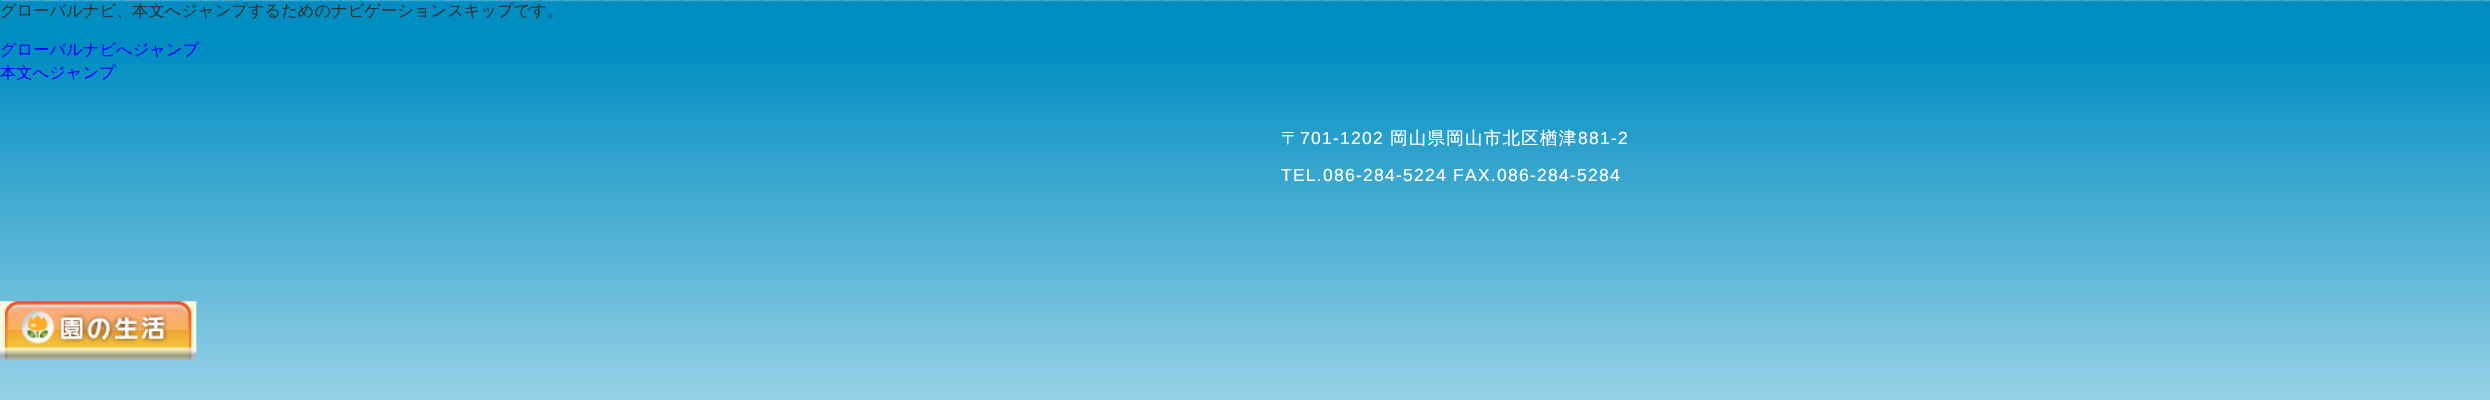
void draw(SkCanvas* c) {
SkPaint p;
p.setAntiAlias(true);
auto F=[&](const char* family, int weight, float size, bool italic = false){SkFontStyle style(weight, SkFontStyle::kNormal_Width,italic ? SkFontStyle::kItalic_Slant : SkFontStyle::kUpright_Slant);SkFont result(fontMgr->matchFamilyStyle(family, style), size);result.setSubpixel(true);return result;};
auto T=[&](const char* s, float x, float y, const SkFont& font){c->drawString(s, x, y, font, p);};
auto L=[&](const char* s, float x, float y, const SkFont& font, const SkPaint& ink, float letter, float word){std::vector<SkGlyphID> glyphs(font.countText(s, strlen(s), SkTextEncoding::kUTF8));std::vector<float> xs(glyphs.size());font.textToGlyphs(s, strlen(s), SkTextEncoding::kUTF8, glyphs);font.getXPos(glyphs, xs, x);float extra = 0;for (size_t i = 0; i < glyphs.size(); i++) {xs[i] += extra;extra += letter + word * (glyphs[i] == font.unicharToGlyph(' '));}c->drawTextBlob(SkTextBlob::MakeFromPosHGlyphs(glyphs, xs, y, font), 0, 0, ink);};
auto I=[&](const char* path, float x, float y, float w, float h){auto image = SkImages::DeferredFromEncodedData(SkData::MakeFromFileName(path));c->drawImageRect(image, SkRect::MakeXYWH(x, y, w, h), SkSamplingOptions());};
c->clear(0xffffffff);
I("1.png",0,0,2490,400);
auto f1 = F("WenQuanYi Zen Hei",500,16.25);
p.setColor(0xff333333);
T("グローバルナビ、本文へジャンプするためのナビゲーションスキップです。",0,16,f1);
p.setColor(0xff0000ff);
T("グローバルナビへジャンプ",0,55,f1);
T("本文へジャンプ",0,78,f1);
auto f2 = F("WenQuanYi Zen Hei",500,17.5);
p.setColor(0xffffffff);
L("〒",1281,144,f2,p,1.25,0);
auto f3 = F("Liberation Sans",400,17.5);
L("701-1202",1300,144,f3,p,1.25,0);
L("岡山県岡山市北区楢津",1390,144,f2,p,1.25,0);
L("881-2",1578,144,f3,p,1.25,0);
L("TEL.086-284-5224 FAX.086-284-5284",1281,181,f3,p,1.25,0);
I("2.png",0,301,197,59);
}
